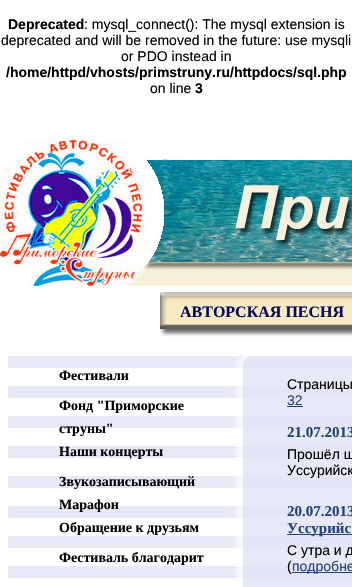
void draw(SkCanvas* c) {
SkPaint p;
p.setAntiAlias(true);
auto F=[&](const char* family, int weight, float size, bool italic = false){SkFontStyle style(weight, SkFontStyle::kNormal_Width,italic ? SkFontStyle::kItalic_Slant : SkFontStyle::kUpright_Slant);SkFont result(fontMgr->matchFamilyStyle(family, style), size);result.setSubpixel(true);return result;};
auto T=[&](const char* s, float x, float y, const SkFont& font){c->drawString(s, x, y, font, p);};
auto R=[&](float x, float y, float w, float h){c->drawRect(SkRect::MakeXYWH(x, y, w, h), p);};
auto I=[&](const char* path, float x, float y, float w, float h){auto image = SkImages::DeferredFromEncodedData(SkData::MakeFromFileName(path));c->drawImageRect(image, SkRect::MakeXYWH(x, y, w, h), SkSamplingOptions());};
c->clear(0xffffffff);
auto f1 = F("Liberation Sans",700,14);
p.setColor(0xff000000);
T("Deprecated",8,29,f1);
auto f2 = F("Liberation Sans",400,14);
T(": mysql_connect(): The mysql extension is",84,29,f2);
T("deprecated and will be removed in the future: use mysqli",1,45,f2);
T("or PDO instead in",121,61,f2);
T("/home/httpd/vhosts/primstruny.ru/httpdocs/sql.php",6,77,f1);
T("on line",150,93,f2);
T("3",195,93,f1);
I("1.png",0,140,352,146);
I("2.png",172,292,180,45);
I("3.png",160,292,12,45);
auto f3 = F("Liberation Serif",700,16);
p.setColor(0xff040857);
T("АВТОРСКАЯ ПЕСНЯ",180,317,f3);
I("4.png",8,356,344,222);
auto f4 = F("Liberation Serif",700,14);
p.setColor(0xff000000);
T("Фестивали",59,380,f4);
T("Фонд \"Приморские",59,410,f4);
T("струны\"",59,433,f4);
T("Наши концерты",59,456,f4);
T("Звукозаписывающий",59,486,f4);
T("Марафон",59,509,f4);
T("Обращение к друзьям",59,532,f4);
T("Фестиваль благодарит",59,562,f4);
I("5.png",234,356,118,20);
I("6.png",234,376,118,211);
T("Страницы",287,389,f2);
p.setColor(0xff204378);
T("32",287,405,f2);
R(287,406,16,1);
auto f5 = F("Liberation Serif",700,15);
T("21.07.2013",287,437,f5);
p.setColor(0xff000000);
T("Прошёл ш",287,459,f2);
T("Уссурийск",287,475,f2);
p.setColor(0xff204378);
T("20.07.2013",287,516,f5);
R(287,534,65,1);
T("Уссурийс",287,533,f5);
p.setColor(0xff000000);
T("С утра и д",287,555,f2);
T("(",287,571,f2);
p.setColor(0xff204378);
R(292,572,60,1);
T("подробне",292,571,f2);
}
